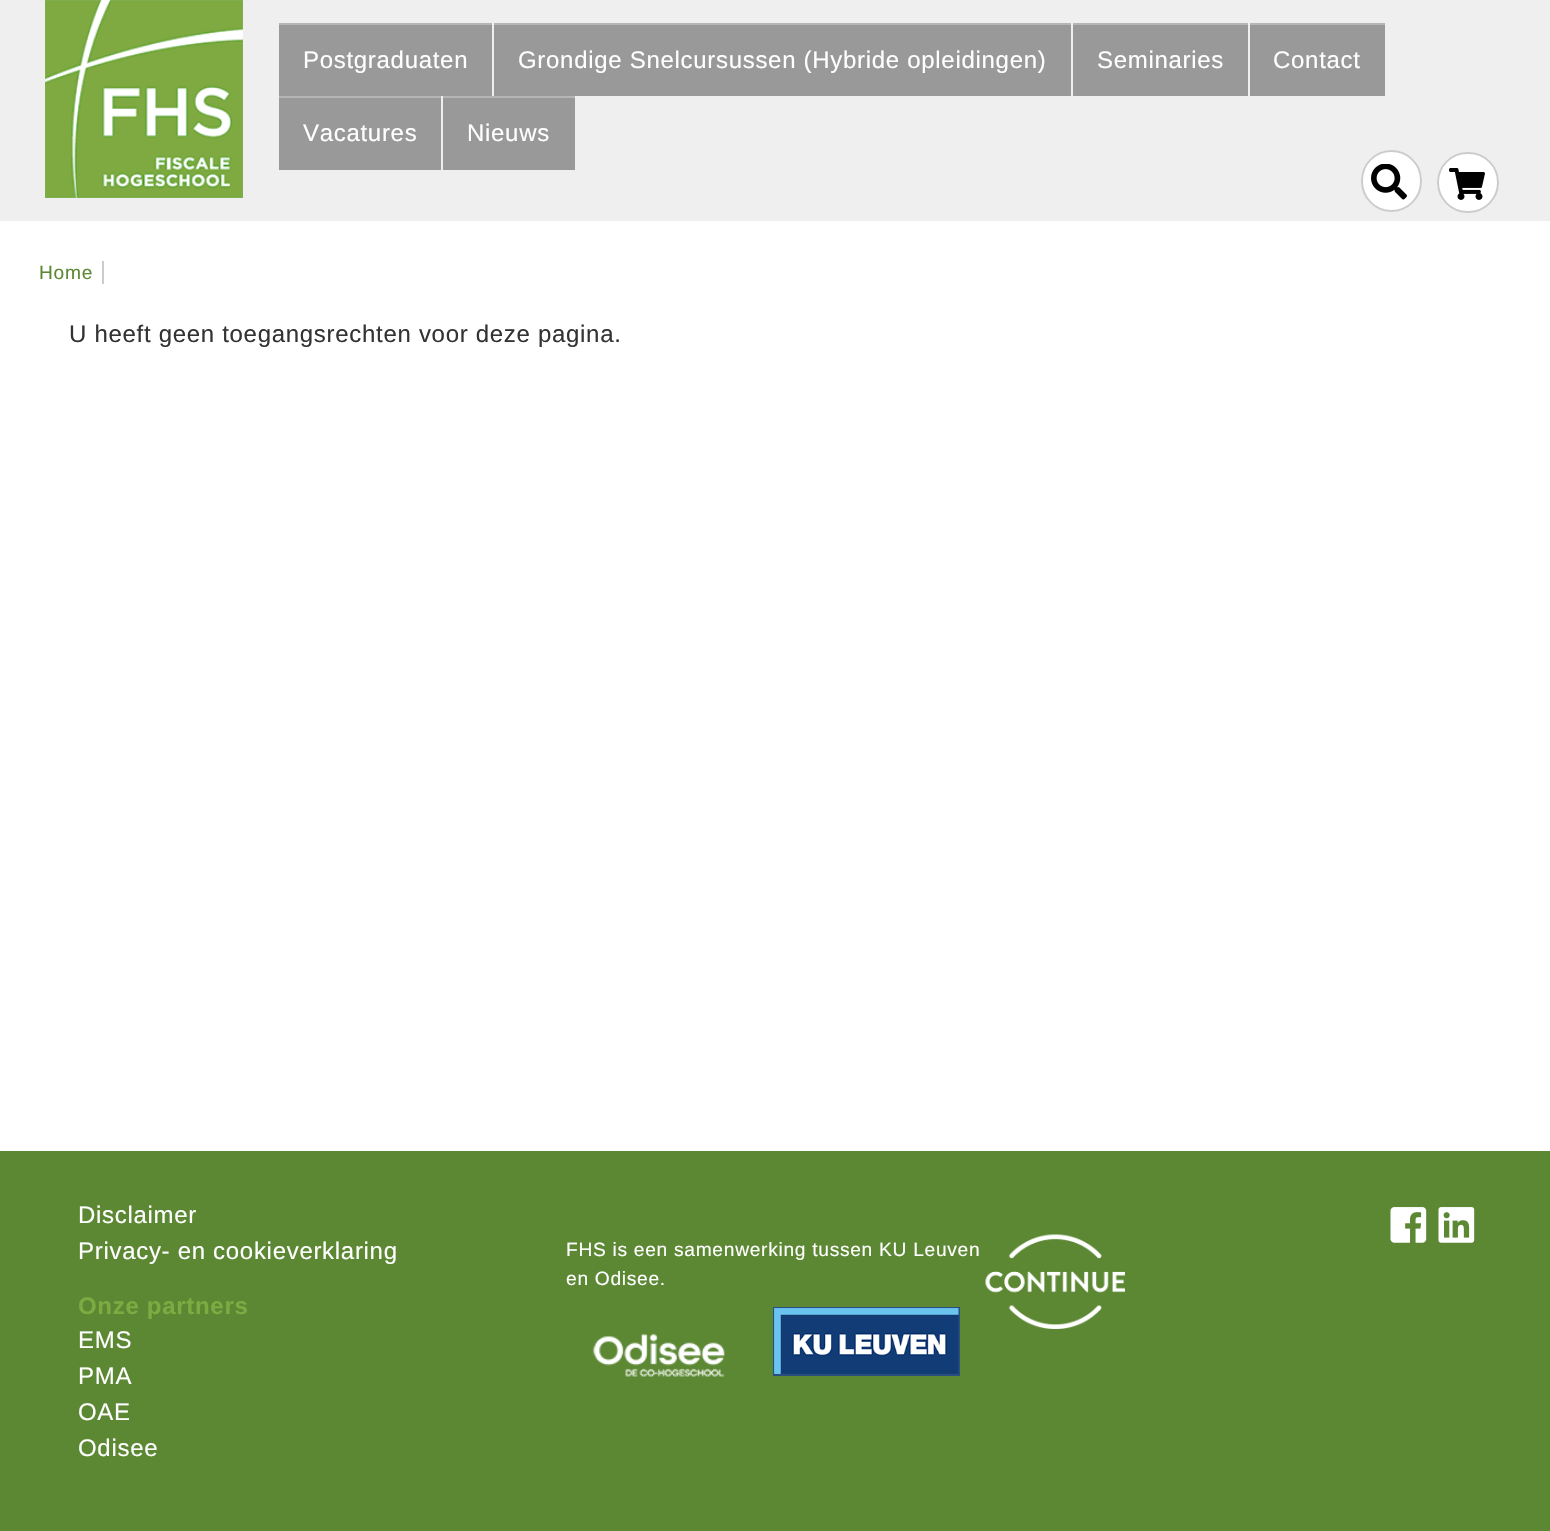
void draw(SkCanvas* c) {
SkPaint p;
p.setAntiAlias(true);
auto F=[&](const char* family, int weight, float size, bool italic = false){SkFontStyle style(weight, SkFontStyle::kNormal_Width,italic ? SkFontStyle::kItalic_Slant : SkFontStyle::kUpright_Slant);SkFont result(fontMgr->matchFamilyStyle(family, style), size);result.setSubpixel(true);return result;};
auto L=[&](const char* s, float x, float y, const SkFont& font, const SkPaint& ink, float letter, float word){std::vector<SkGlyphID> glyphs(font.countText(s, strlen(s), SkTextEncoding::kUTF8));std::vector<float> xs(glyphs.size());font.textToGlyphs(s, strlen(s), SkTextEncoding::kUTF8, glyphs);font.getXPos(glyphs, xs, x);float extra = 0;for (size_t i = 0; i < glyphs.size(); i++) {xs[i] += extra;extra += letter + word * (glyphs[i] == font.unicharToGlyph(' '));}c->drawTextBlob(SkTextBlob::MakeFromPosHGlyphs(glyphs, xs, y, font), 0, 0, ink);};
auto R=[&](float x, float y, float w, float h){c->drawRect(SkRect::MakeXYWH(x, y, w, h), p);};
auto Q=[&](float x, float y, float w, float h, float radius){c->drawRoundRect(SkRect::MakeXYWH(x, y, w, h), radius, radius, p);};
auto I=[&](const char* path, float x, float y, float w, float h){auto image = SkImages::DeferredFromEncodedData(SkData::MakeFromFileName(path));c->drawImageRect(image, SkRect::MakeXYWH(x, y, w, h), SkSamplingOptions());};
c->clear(0xffffffff);
p.setColor(0xffefefef);
R(0,0,1550,221);
I("1.png",45,0,198,198);
p.setColor(0xff999999);
R(279,25,213,71);
p.setColor(0xffb5b5b5);
R(279,23,213,2);
auto f1 = F("Liberation Sans",400,24);
p.setColor(0xffffffff);
L("Postgraduaten",303,68,f1,p,.7,0);
p.setColor(0xff999999);
R(494,25,577,71);
p.setColor(0xffb5b5b5);
R(494,23,577,2);
p.setColor(0xffffffff);
L("Grondige Snelcursussen (Hybride opleidingen)",518,68,f1,p,.7,0);
p.setColor(0xff999999);
R(1073,25,175,71);
p.setColor(0xffb5b5b5);
R(1073,23,175,2);
p.setColor(0xffffffff);
L("Seminaries",1097,68,f1,p,.7,0);
p.setColor(0xff999999);
R(1250,25,135,71);
p.setColor(0xffb5b5b5);
R(1250,23,135,2);
p.setColor(0xffffffff);
L("Contact",1273,68,f1,p,.7,0);
p.setColor(0xff999999);
R(279,98,162,72);
p.setColor(0xffb5b5b5);
R(279,96,162,2);
p.setColor(0xffffffff);
L("Vacatures",303,141,f1,p,.7,0);
p.setColor(0xff999999);
R(443,98,132,72);
p.setColor(0xffb5b5b5);
R(443,96,132,2);
p.setColor(0xffffffff);
L("Nieuws",467,141,f1,p,.7,0);
Q(1437,152,62,61,30.5);
I("2.png",1449,168,36,32);
p.setStroke(true);
p.setStrokeWidth(2);
p.setColor(0xffcccccc);
c->drawRoundRect(SkRect::MakeXYWH(1438,153,60,59),29.5,29.5,p);
p.setStroke(false);
p.setColor(0xffffffff);
Q(1361,150,61,62,30.5);
I("3.png",1371,164,36,36);
p.setStroke(true);
p.setColor(0xffcccccc);
c->drawRoundRect(SkRect::MakeXYWH(1362,151,59,60),29.5,29.5,p);
auto f2 = F("Liberation Sans",400,19.2);
p.setStroke(false);
p.setColor(0xff5c8834);
L("Home",39,279,f2,p,.7,0);
p.setColor(0xffcccccc);
R(102,261,2,23);
p.setColor(0xff333333);
L("U heeft geen toegangsrechten voor deze pagina.",69,342,f1,p,.7,0);
p.setColor(0xff5c8834);
R(0,1151,1550,380);
p.setColor(0xffffffff);
L("Disclaimer",78,1223,f1,p,.7,0);
L("Privacy- en cookieverklaring",78,1259,f1,p,.7,0);
auto f3 = F("Liberation Sans",700,24);
p.setColor(0xff7daa41);
L("Onze partners",78,1314,f3,p,.7,0);
p.setColor(0xffffffff);
L("EMS",78,1348,f1,p,.7,0);
L("PMA",78,1384,f1,p,.7,0);
L("OAE",78,1420,f1,p,.7,0);
L("Odisee",78,1456,f1,p,.7,0);
I("4.png",1390,1207,37,36);
I("5.png",1438,1207,37,36);
L("FHS is een samenwerking tussen KU Leuven",566,1256,f2,p,.7,0);
L("en Odisee.",566,1285,f2,p,.7,0);
p.setStroke(true);
p.setColor(0xff284e82);
c->drawRect(SkRect::MakeXYWH(774,1308,185,67),p);
I("6.png",592,1333,133,44);
I("7.png",774,1308,185,66);
I("8.png",985,1234,140,95);
}
